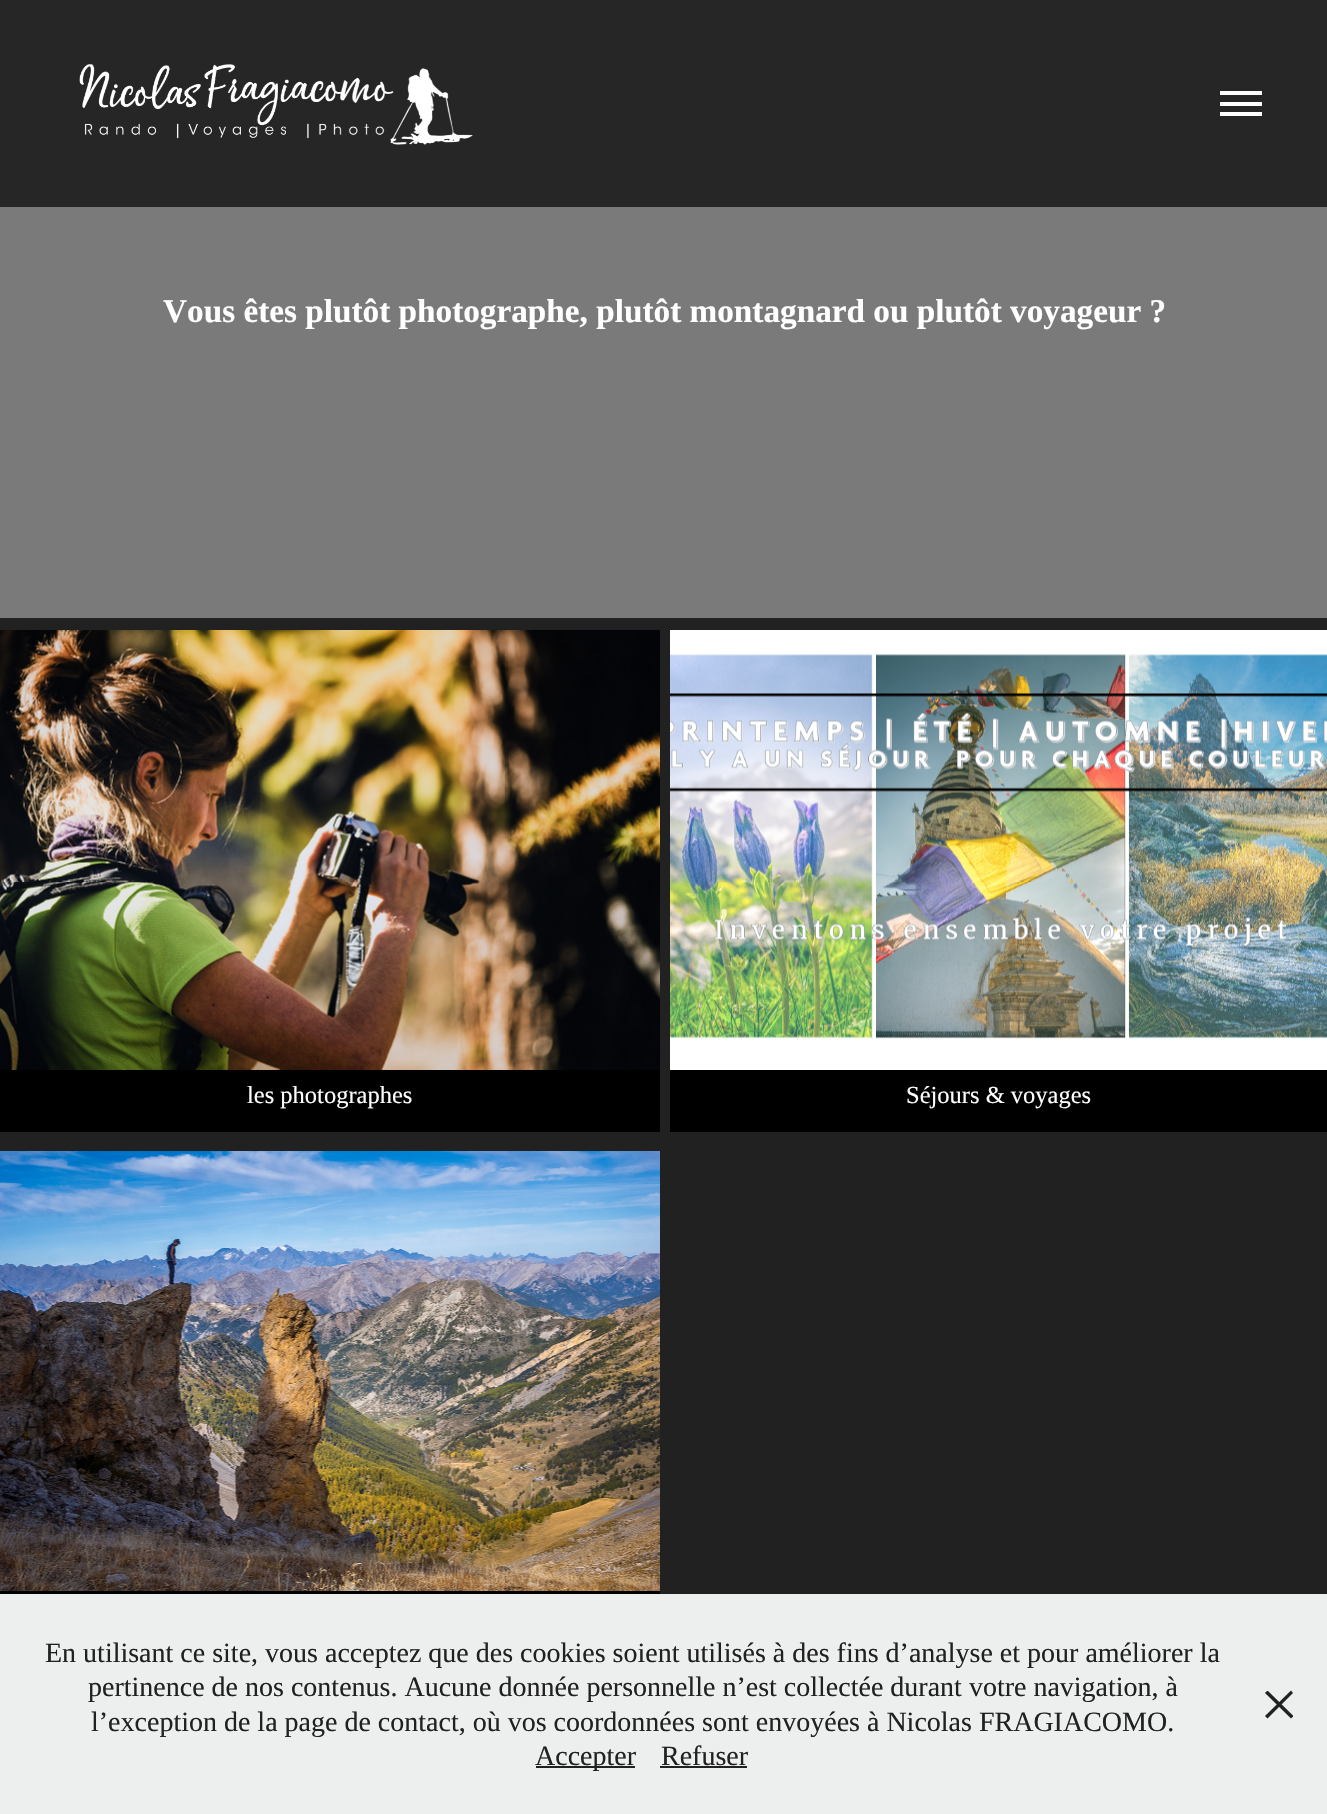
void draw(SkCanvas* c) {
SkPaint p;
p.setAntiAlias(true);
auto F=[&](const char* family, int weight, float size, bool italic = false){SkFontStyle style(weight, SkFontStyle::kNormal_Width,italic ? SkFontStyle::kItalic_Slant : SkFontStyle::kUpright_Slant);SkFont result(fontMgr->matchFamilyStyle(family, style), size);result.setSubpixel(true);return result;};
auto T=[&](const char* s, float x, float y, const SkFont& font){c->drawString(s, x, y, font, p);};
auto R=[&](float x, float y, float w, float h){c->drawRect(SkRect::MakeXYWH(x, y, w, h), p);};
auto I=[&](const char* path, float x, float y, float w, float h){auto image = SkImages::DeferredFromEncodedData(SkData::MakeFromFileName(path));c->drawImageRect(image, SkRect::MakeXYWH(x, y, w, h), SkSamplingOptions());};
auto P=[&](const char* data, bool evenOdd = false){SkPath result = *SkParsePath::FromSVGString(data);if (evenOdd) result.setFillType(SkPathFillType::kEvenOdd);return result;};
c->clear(0xff212121);
p.setColor(0xff262626);
R(0,0,1327,207);
I("1.png",79,64,394,81);
p.setColor(0xffffffff);
R(1220,91,42,4);
R(1220,102,42,4);
R(1220,112,42,4);
p.setColor(0xff7a7a7a);
R(0,207,1327,411);
auto f1 = F("Liberation Serif",700,33.25);
p.setColor(0xffffffff);
T("Vous êtes plutôt photographe, plutôt montagnard ou plutôt voyageur ?",163,322,f1);
I("2.png",0,630,660,440);
p.setColor(0xff000000);
R(0,1070,660,62);
auto f2 = F("Liberation Serif",400,24.5);
p.setColor(0xffffffff);
T("les photographes",247,1103,f2);
I("3.png",670,630,657,440);
p.setColor(0xff000000);
R(670,1070,657,62);
p.setColor(0xffffffff);
T("Séjours & voyages",906,1103,f2);
I("4.png",0,1151,660,440);
p.setColor(0xff000000);
R(0,1591,660,3);
p.setColor(0xffedeeee);
R(0,1594,1327,220);
auto f3 = F("Liberation Serif",400,28);
p.setColor(0xff212121);
T("En utilisant ce site, vous acceptez que des cookies soient utilisés à des fins d’analyse et pour améliorer la",45,1662,f3);
T("pertinence de nos contenus. Aucune donnée personnelle n’est collectée durant votre navigation, à",88,1696,f3);
T("l’exception de la page de contact, où vos coordonnées sont envoyées à Nicolas FRAGIACOMO.",91,1731,f3);
R(536,1766,99,2);
T("Accepter",535,1765,f3);
T("Refuser",661,1765,f3);
R(660,1766,87,2);
c->save();
c->clipRect(SkRect::MakeXYWH(1265,1691,28,28));
c->drawPath(P("M1265 1693l2.5-2.5l26 25.5l-2.5 2.5z"),p);
c->restore();
c->drawPath(P("M1267.5 1718.5l-2.5-2.5l26-25.5l2 2.5z"),p);
}
